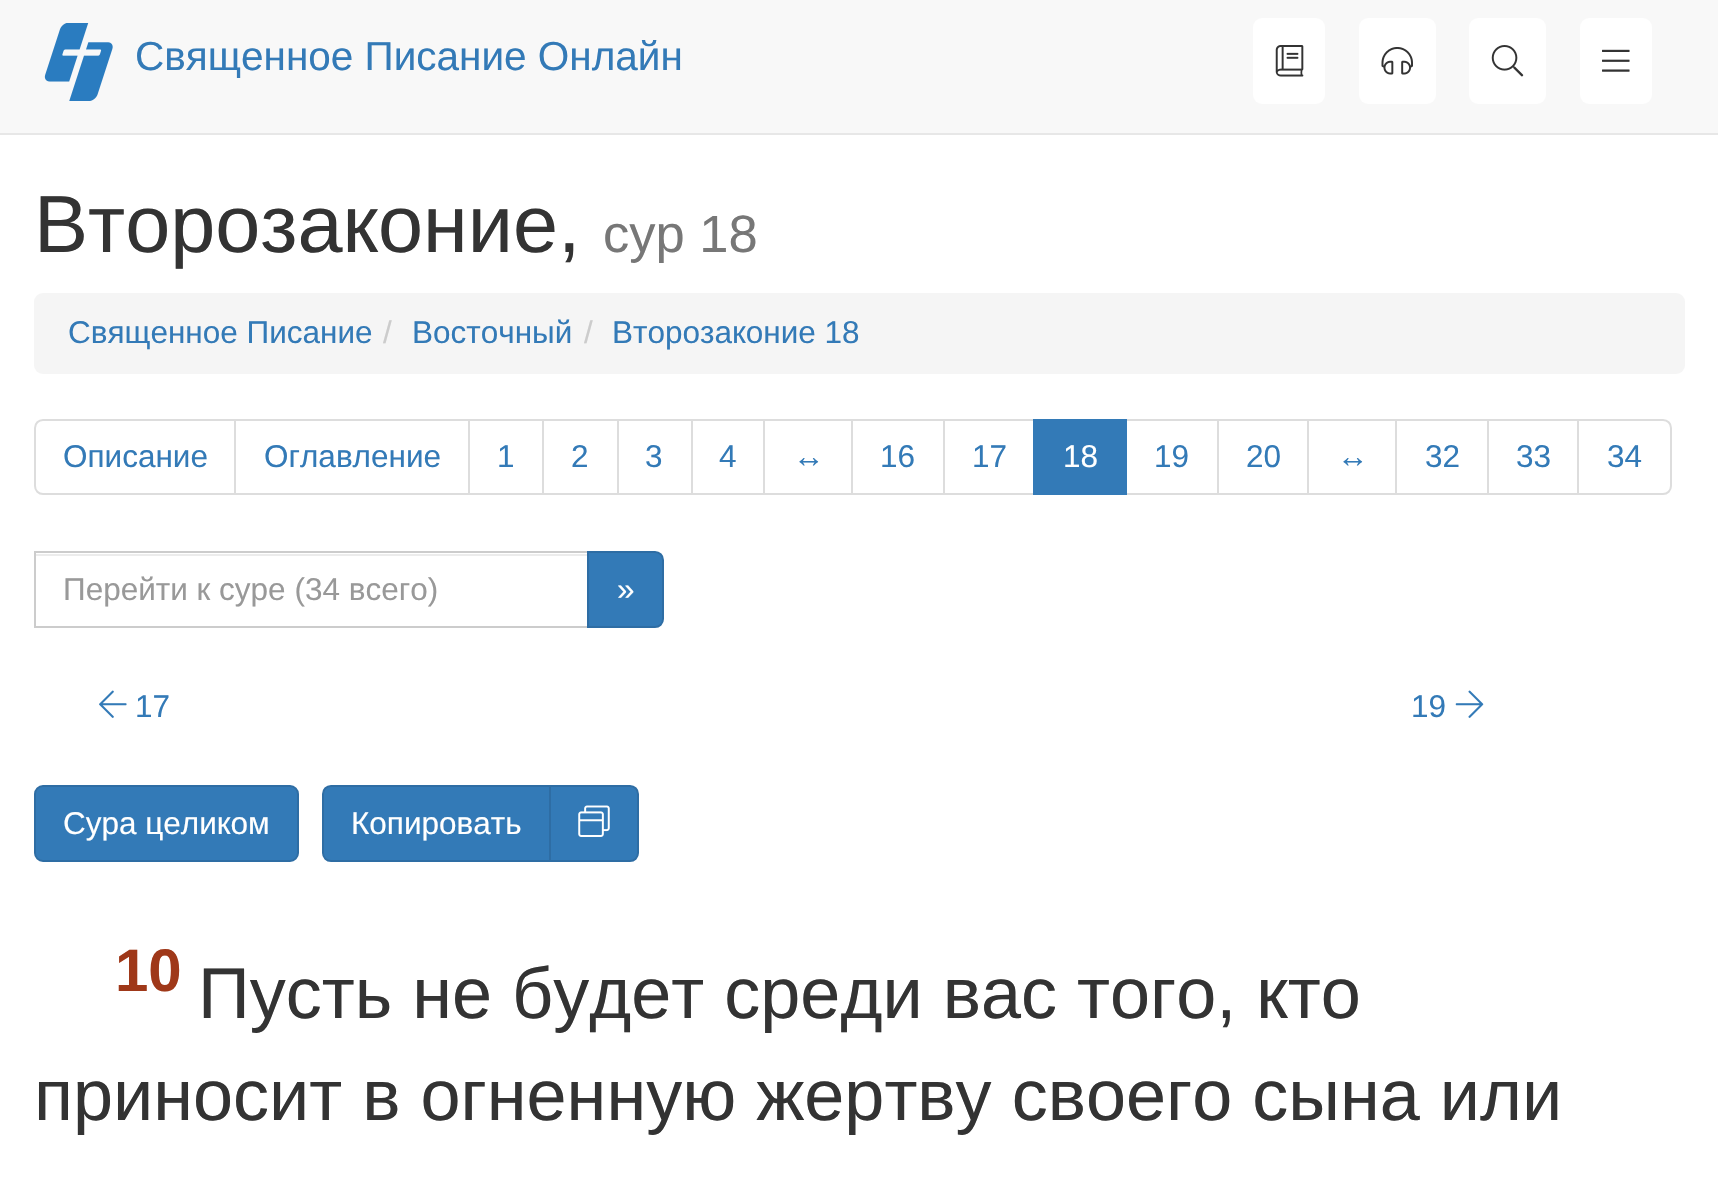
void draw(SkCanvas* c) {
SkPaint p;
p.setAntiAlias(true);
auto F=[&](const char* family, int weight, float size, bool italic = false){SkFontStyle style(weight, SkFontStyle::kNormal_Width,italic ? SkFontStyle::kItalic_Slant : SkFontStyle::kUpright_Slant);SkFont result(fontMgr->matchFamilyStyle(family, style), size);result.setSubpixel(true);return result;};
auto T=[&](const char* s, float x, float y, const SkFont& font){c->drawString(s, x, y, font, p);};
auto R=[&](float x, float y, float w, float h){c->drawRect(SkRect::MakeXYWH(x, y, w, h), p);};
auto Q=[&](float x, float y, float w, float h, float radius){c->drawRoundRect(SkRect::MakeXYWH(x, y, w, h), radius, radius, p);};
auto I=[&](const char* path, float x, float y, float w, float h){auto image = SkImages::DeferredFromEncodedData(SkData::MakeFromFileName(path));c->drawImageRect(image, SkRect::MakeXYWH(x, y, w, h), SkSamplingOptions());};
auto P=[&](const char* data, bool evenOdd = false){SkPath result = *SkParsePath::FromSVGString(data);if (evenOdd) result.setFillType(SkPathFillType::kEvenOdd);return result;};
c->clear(0xffffffff);
p.setColor(0xfff8f8f8);
R(0,0,1718,133);
p.setColor(0xffe7e7e7);
R(0,133,1718,2);
I("1.png",44,23,69,78);
auto f1 = F("Liberation Sans",400,40.5);
p.setColor(0xff337ab7);
T("Священное Писание Онлайн",135,70,f1);
p.setColor(0xffffffff);
Q(1253,18,72,86,9);
I("2.png",1275,45,29,32);
Q(1359,18,77,86,9);
I("3.png",1381,47,32,28);
Q(1469,18,77,86,9);
I("4.png",1491,45,33,32);
Q(1580,18,72,86,9);
I("5.png",1602,49,28,23);
auto f2 = F("Liberation Sans",400,81);
p.setColor(0xff333333);
T("Второзаконие,",34,252,f2);
auto f3 = F("Liberation Sans",400,52.5);
p.setColor(0xff777777);
T("сур 18",603,252,f3);
p.setColor(0xfff5f5f5);
Q(34,293,1651,81,9);
auto f4 = F("Liberation Sans",400,31.5);
p.setColor(0xff337ab7);
T("Священное Писание",68,343,f4);
p.setColor(0xffcccccc);
T("/",383,343,f4);
p.setColor(0xff337ab7);
T("Восточный",412,343,f4);
p.setColor(0xffcccccc);
T("/",584,343,f4);
p.setColor(0xff337ab7);
T("Второзаконие 18",612,343,f4);
p.setStroke(true);
p.setStrokeWidth(2);
p.setColor(0xffdddddd);
c->drawPath(P("M43 420h192v74h-192c-4.5 0-8-3.5-8-8v-58c0-4.5 3.5-8 8-8z"),p);
p.setStroke(false);
p.setColor(0xff337ab7);
T("Описание",63,467,f4);
p.setStroke(true);
p.setColor(0xffdddddd);
c->drawRect(SkRect::MakeXYWH(235,420,234,74),p);
p.setStroke(false);
p.setColor(0xff337ab7);
T("Оглавление",264,467,f4);
p.setStroke(true);
p.setColor(0xffdddddd);
c->drawRect(SkRect::MakeXYWH(469,420,75,74),p);
p.setStroke(false);
p.setColor(0xff337ab7);
T("1",497,467,f4);
p.setColor(0xffffffff);
R(544,421,1,72);
p.setStroke(true);
p.setColor(0xffdddddd);
c->drawRect(SkRect::MakeXYWH(543,420,75,74),p);
p.setStroke(false);
p.setColor(0xff337ab7);
T("2",571,467,f4);
p.setStroke(true);
p.setColor(0xffdddddd);
c->drawRect(SkRect::MakeXYWH(618,420,74,74),p);
p.setStroke(false);
p.setColor(0xff337ab7);
T("3",645,467,f4);
p.setStroke(true);
p.setColor(0xffdddddd);
c->drawRect(SkRect::MakeXYWH(692,420,72,74),p);
p.setStroke(false);
p.setColor(0xff337ab7);
T("4",719,467,f4);
p.setStroke(true);
p.setColor(0xffdddddd);
c->drawRect(SkRect::MakeXYWH(764,420,88,74),p);
p.setStroke(false);
p.setColor(0xff337ab7);
T("↔",793,467,f4);
p.setStroke(true);
p.setColor(0xffdddddd);
c->drawRect(SkRect::MakeXYWH(852,420,92,74),p);
p.setStroke(false);
p.setColor(0xff337ab7);
T("16",880,467,f4);
p.setStroke(true);
p.setColor(0xffdddddd);
c->drawRect(SkRect::MakeXYWH(944,420,90,74),p);
p.setStroke(false);
p.setColor(0xff337ab7);
T("17",972,467,f4);
p.setStroke(true);
p.setColor(0xffdddddd);
c->drawRect(SkRect::MakeXYWH(1126,420,93,74),p);
p.setStroke(false);
p.setColor(0xff337ab7);
R(1033,419,94,76);
p.setColor(0xffffffff);
T("18",1063,467,f4);
p.setColor(0xff337ab7);
T("19",1154,467,f4);
p.setColor(0xffffffff);
R(1219,421,1,72);
p.setStroke(true);
p.setColor(0xffdddddd);
c->drawRect(SkRect::MakeXYWH(1218,420,91,74),p);
p.setStroke(false);
p.setColor(0xff337ab7);
T("20",1246,467,f4);
p.setColor(0xffffffff);
R(1309,421,1,72);
p.setStroke(true);
p.setColor(0xffdddddd);
c->drawRect(SkRect::MakeXYWH(1308,420,88,74),p);
p.setStroke(false);
p.setColor(0xff337ab7);
T("↔",1337,467,f4);
p.setStroke(true);
p.setColor(0xffdddddd);
c->drawRect(SkRect::MakeXYWH(1396,420,93,74),p);
p.setStroke(false);
p.setColor(0xff337ab7);
T("32",1425,467,f4);
p.setColor(0xffffffff);
R(1489,421,1,72);
p.setStroke(true);
p.setColor(0xffdddddd);
c->drawRect(SkRect::MakeXYWH(1488,420,91,74),p);
p.setStroke(false);
p.setColor(0xff337ab7);
T("33",1516,467,f4);
p.setColor(0xffffffff);
c->drawPath(P("M1578 420h85c4.5 0 8 3.5 8 8v58c0 4.5-3.5 8-8 8h-85z"),p);
p.setStroke(true);
p.setColor(0xffdddddd);
c->drawPath(P("M1578 420h85c4.5 0 8 3.5 8 8v58c0 4.5-3.5 8-8 8h-85z"),p);
p.setStroke(false);
p.setColor(0xff337ab7);
T("34",1607,467,f4);
p.setColor(0xffececec);
R(36,554,551,2);
p.setStroke(true);
p.setColor(0xffcccccc);
c->drawRect(SkRect::MakeXYWH(35,552,554,75),p);
p.setStroke(false);
p.setColor(0xff999999);
T("Перейти к суре (34 всего)",63,600,f4);
p.setColor(0xff337ab7);
c->drawPath(P("M588 552h67c4.5 0 8 3.5 8 8v59c0 4.5-3.5 8-8 8h-67z"),p);
p.setStroke(true);
p.setColor(0xff2e6da4);
c->drawPath(P("M588 552h67c4.5 0 8 3.5 8 8v59c0 4.5-3.5 8-8 8h-67z"),p);
p.setStroke(false);
p.setColor(0xffffffff);
T("»",617,600,f4);
I("6.png",99,690,28,28);
p.setColor(0xff337ab7);
T("17",135,717,f4);
T("19",1411,717,f4);
I("7.png",1455,690,29,28);
c->drawRoundRect(SkRect::MakeXYWH(35,786,263,75),8,8,p);
p.setStroke(true);
p.setColor(0xff2e6da4);
c->drawRoundRect(SkRect::MakeXYWH(35,786,263,75),8,8,p);
p.setStroke(false);
p.setColor(0xffffffff);
T("Сура целиком",63,834,f4);
p.setColor(0xff337ab7);
c->drawPath(P("M331 786h219v75h-219c-4.5 0-8-3.5-8-8v-59c0-4.5 3.5-8 8-8z"),p);
p.setStroke(true);
p.setColor(0xff2e6da4);
c->drawPath(P("M331 786h219v75h-219c-4.5 0-8-3.5-8-8v-59c0-4.5 3.5-8 8-8z"),p);
p.setStroke(false);
p.setColor(0xffffffff);
T("Копировать",351,834,f4);
p.setColor(0xff337ab7);
c->drawPath(P("M550 786h80c4.5 0 8 3.5 8 8v59c0 4.5-3.5 8-8 8h-80z"),p);
p.setStroke(true);
p.setColor(0xff2e6da4);
c->drawPath(P("M550 786h80c4.5 0 8 3.5 8 8v59c0 4.5-3.5 8-8 8h-80z"),p);
I("8.png",578,805,32,32);
auto f5 = F("Liberation Sans",700,60);
p.setStroke(false);
p.setColor(0xff9f3819);
T("10",115,991,f5);
auto f6 = F("Liberation Sans",400,72);
p.setColor(0xff333333);
T("Пусть не будет среди вас того, кто",198,1018,f6);
T("приносит в огненную жертву своего сына или",34,1120,f6);
}
